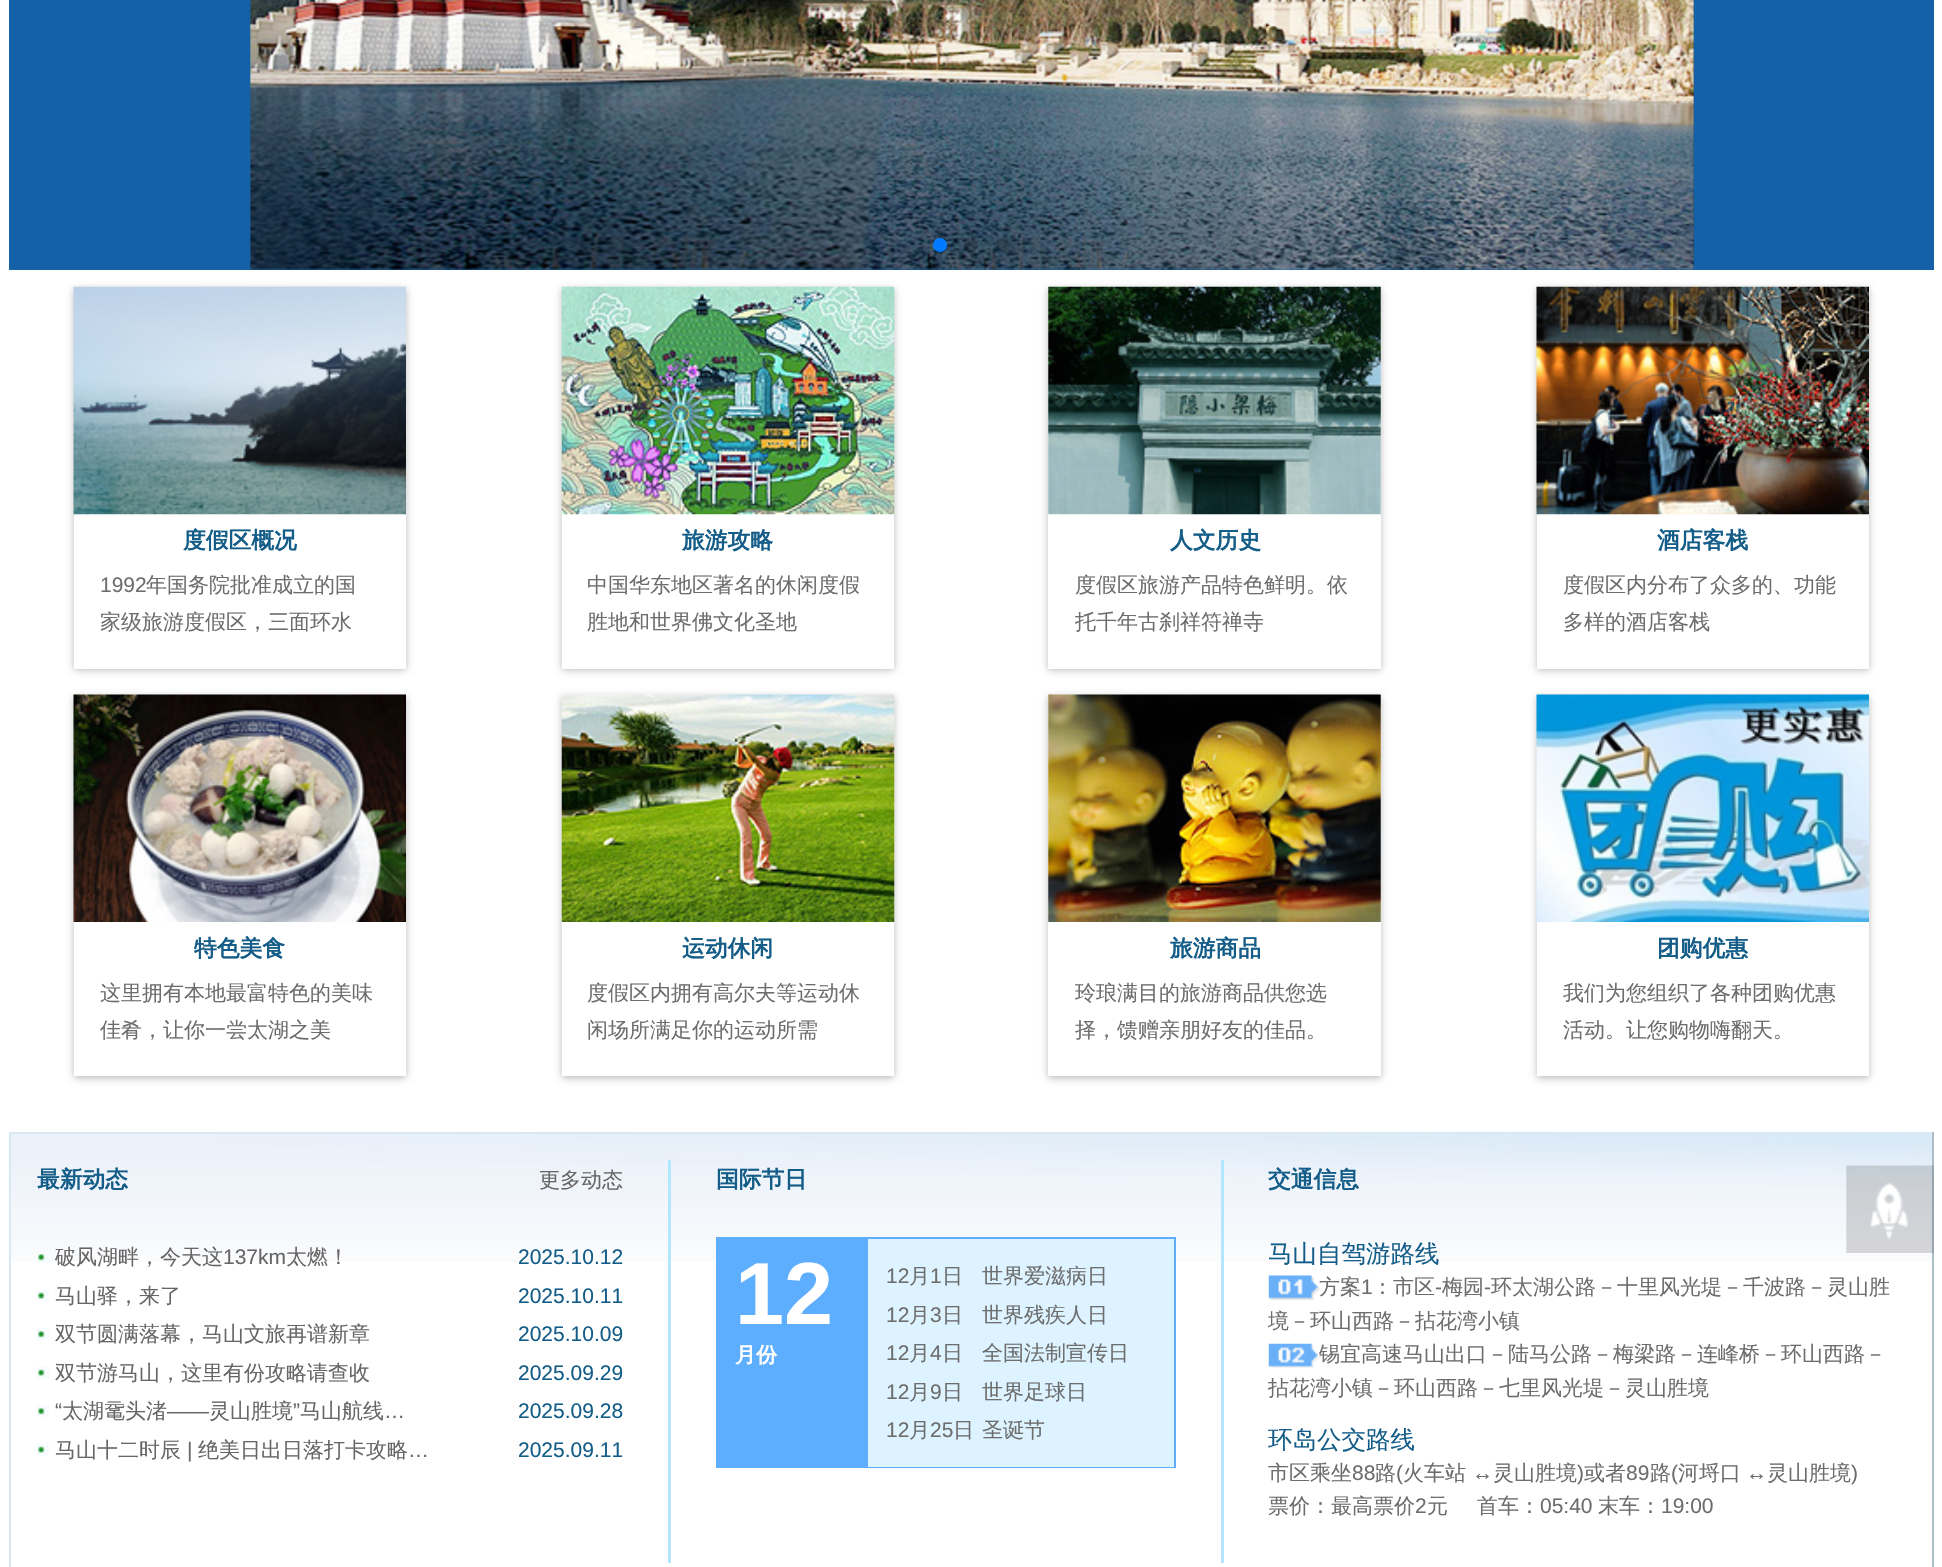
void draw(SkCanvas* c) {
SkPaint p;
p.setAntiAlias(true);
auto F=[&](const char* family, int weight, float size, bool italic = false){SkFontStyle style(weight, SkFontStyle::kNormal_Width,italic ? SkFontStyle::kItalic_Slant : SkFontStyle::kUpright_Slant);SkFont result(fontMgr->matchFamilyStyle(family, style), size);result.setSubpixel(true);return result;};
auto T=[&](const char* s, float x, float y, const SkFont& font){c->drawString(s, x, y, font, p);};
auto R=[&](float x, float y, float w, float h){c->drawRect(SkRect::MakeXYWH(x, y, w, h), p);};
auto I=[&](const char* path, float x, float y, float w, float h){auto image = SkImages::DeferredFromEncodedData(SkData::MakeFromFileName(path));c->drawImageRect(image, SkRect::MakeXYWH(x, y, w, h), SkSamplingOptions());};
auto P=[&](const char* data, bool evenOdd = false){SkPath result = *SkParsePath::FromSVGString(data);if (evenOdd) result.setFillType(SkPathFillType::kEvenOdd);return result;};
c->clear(0xffffffff);
p.setColor(0xff1561a7);
R(9,0,1925,270);
I("1.png",250,0,1444,270);
I("2.png",1693,0,1,270);
p.setColor(0xff007aff);
c->drawCircle(940,245,7,p);
p.setColor(0x33000000);
c->drawCircle(971,245,7,p);
c->drawCircle(1003,245,7,p);
p.setColor(0x45000000);
p.setMaskFilter(SkMaskFilter::MakeBlur(kNormal_SkBlurStyle, 3.5));
c->drawRect(SkRect::MakeXYWH(74,289,332,381),p);
p.setMaskFilter(nullptr);
p.setColor(0xffffffff);
R(74,514,332,155);
I("3.png",73,286,333,229);
auto f1 = F("WenQuanYi Zen Hei",700,22.75);
p.setColor(0xff145d88);
T("度假区概况",183,548,f1);
auto f2 = F("Liberation Sans",400,21);
p.setColor(0xff6d6d6d);
T("1992",100,592,f2);
auto f3 = F("WenQuanYi Zen Hei",500,21);
T("年国务院批准成立的国",146,592,f3);
T("家级旅游度假区，三面环水",100,629,f3);
p.setColor(0x45000000);
p.setMaskFilter(SkMaskFilter::MakeBlur(kNormal_SkBlurStyle, 3.5));
c->drawRect(SkRect::MakeXYWH(562,289,332,381),p);
p.setMaskFilter(nullptr);
p.setColor(0xffffffff);
R(562,514,332,155);
I("4.png",561,286,334,229);
p.setColor(0xff145d88);
T("旅游攻略",682,548,f1);
p.setColor(0xff6d6d6d);
T("中国华东地区著名的休闲度假",587,592,f3);
T("胜地和世界佛文化圣地",587,629,f3);
p.setColor(0x45000000);
p.setMaskFilter(SkMaskFilter::MakeBlur(kNormal_SkBlurStyle, 3.5));
c->drawRect(SkRect::MakeXYWH(1048,289,333,381),p);
p.setMaskFilter(nullptr);
p.setColor(0xffffffff);
R(1048,287,333,382);
I("5.png",1048,286,333,229);
p.setColor(0xff145d88);
T("人文历史",1170,548,f1);
p.setColor(0xff6d6d6d);
T("度假区旅游产品特色鲜明。依",1075,592,f3);
T("托千年古刹祥符禅寺",1075,629,f3);
p.setColor(0x45000000);
p.setMaskFilter(SkMaskFilter::MakeBlur(kNormal_SkBlurStyle, 3.5));
c->drawRect(SkRect::MakeXYWH(1537,289,332,381),p);
p.setMaskFilter(nullptr);
p.setColor(0xffffffff);
R(1537,514,332,155);
I("6.png",1536,286,333,229);
p.setColor(0xff145d88);
T("酒店客栈",1657,548,f1);
p.setColor(0xff6d6d6d);
T("度假区内分布了众多的、功能",1563,592,f3);
T("多样的酒店客栈",1563,629,f3);
c->save();
c->clipPath(P("M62 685h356v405h-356zm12 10h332v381h-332z",true),true);
p.setColor(0x45000000);
p.setMaskFilter(SkMaskFilter::MakeBlur(kNormal_SkBlurStyle, 3.5));
c->drawRect(SkRect::MakeXYWH(74,697,332,381),p);
p.setMaskFilter(nullptr);
c->restore();
I("7.png",73,694,333,228);
p.setColor(0xff145d88);
T("特色美食",194,956,f1);
p.setColor(0xff6d6d6d);
T("这里拥有本地最富特色的美味",100,1000,f3);
T("佳肴，让你一尝太湖之美",100,1037,f3);
c->save();
c->clipPath(P("M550 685h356v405h-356zm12 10h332v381h-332z",true),true);
p.setColor(0x45000000);
p.setMaskFilter(SkMaskFilter::MakeBlur(kNormal_SkBlurStyle, 3.5));
c->drawRect(SkRect::MakeXYWH(562,697,332,381),p);
p.setMaskFilter(nullptr);
c->restore();
I("8.png",561,694,334,228);
p.setColor(0xff145d88);
T("运动休闲",682,956,f1);
p.setColor(0xff6d6d6d);
T("度假区内拥有高尔夫等运动休",587,1000,f3);
T("闲场所满足你的运动所需",587,1037,f3);
p.setColor(0x45000000);
p.setMaskFilter(SkMaskFilter::MakeBlur(kNormal_SkBlurStyle, 3.5));
c->drawRect(SkRect::MakeXYWH(1048,697,333,381),p);
p.setMaskFilter(nullptr);
p.setColor(0xffffffff);
R(1048,695,333,381);
I("9.png",1048,694,333,228);
p.setColor(0xff145d88);
T("旅游商品",1170,956,f1);
p.setColor(0xff6d6d6d);
T("玲琅满目的旅游商品供您选",1075,1000,f3);
T("择，馈赠亲朋好友的佳品。",1075,1037,f3);
c->save();
c->clipPath(P("M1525 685h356v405h-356zm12 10h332v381h-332z",true),true);
p.setColor(0x45000000);
p.setMaskFilter(SkMaskFilter::MakeBlur(kNormal_SkBlurStyle, 3.5));
c->drawRect(SkRect::MakeXYWH(1537,697,332,381),p);
p.setMaskFilter(nullptr);
c->restore();
I("10.png",1536,694,333,228);
p.setColor(0xff145d88);
T("团购优惠",1657,956,f1);
p.setColor(0xff6d6d6d);
T("我们为您组织了各种团购优惠",1563,1000,f3);
T("活动。让您购物嗨翻天。",1563,1037,f3);
I("12.png",8,1133,1924,129);
p.setColor(0xffd8e9f3);
R(9,1132,1925,2);
p.setColor(0xffacbdc7);
R(1932,1132,2,435);
I("11.png",1846,1165,88,88);
p.setColor(0xffd8e9f3);
R(9,1132,2,435);
p.setColor(0xff145d88);
T("最新动态",37,1187,f1);
p.setColor(0xff666666);
T("更多动态",539,1187,f3);
I("13.png",38,1254,11,9);
T("破风湖畔，今天这",55,1264,f3);
T("137km",223,1264,f2);
T("太燃！",286,1264,f3);
p.setColor(0xff145d88);
T("2025.10.12",518,1264,f2);
I("14.png",37,1289,12,13);
p.setColor(0xff666666);
T("马山驿，来了",55,1303,f3);
p.setColor(0xff145d88);
T("2025.10.11",518,1303,f2);
I("15.png",37,1328,12,12);
p.setColor(0xff666666);
T("双节圆满落幕，马山文旅再谱新章",55,1341,f3);
p.setColor(0xff145d88);
T("2025.10.09",518,1341,f2);
I("14.png",37,1366,12,13);
p.setColor(0xff666666);
T("双节游马山，这里有份攻略请查收",55,1380,f3);
p.setColor(0xff145d88);
T("2025.09.29",518,1380,f2);
I("15.png",37,1405,12,12);
p.setColor(0xff666666);
T("“",55,1418,f2);
T("太湖鼋头渚",62,1418,f3);
T("——",167,1418,f2);
T("灵山胜境",209,1418,f3);
T("”",293,1418,f2);
T("马山航线",300,1418,f3);
T("…",384,1418,f2);
p.setColor(0xff145d88);
T("2025.09.28",518,1418,f2);
I("14.png",37,1443,12,13);
p.setColor(0xff666666);
T("马山十二时辰",55,1457,f3);
T("|",187,1457,f2);
T("绝美日出日落打卡攻略",198,1457,f3);
T("…",408,1457,f2);
p.setColor(0xff145d88);
T("2025.09.11",518,1457,f2);
p.setColor(0xedaee5ff);
R(668,1160,3,403);
p.setColor(0xff145d88);
T("国际节日",716,1187,f1);
p.setStroke(true);
p.setStrokeWidth(2);
p.setColor(0xff5daeff);
c->drawRect(SkRect::MakeXYWH(717,1238,458,229),p);
p.setStroke(false);
p.setColor(0xffddf3ff);
R(868,1239,306,18);
p.setColor(0xff5daeff);
R(718,1239,150,227);
auto f4 = F("Liberation Sans",700,88);
p.setColor(0xffffffff);
T("12",735,1324,f4);
auto f5 = F("WenQuanYi Zen Hei",700,21);
T("月份",735,1362,f5);
p.setColor(0xffddf3ff);
R(868,1257,306,38);
p.setColor(0xff6d6d6d);
T("12",886,1283,f2);
T("月",909,1283,f3);
T("1",930,1283,f2);
T("日",942,1283,f3);
T("世界爱滋病日",982,1283,f3);
p.setColor(0xffddf3ff);
R(868,1295,306,39);
p.setColor(0xff6d6d6d);
T("12",886,1322,f2);
T("月",909,1322,f3);
T("3",930,1322,f2);
T("日",942,1322,f3);
T("世界残疾人日",982,1322,f3);
p.setColor(0xffddf3ff);
R(868,1334,306,38);
p.setColor(0xff6d6d6d);
T("12",886,1360,f2);
T("月",909,1360,f3);
T("4",930,1360,f2);
T("日",942,1360,f3);
T("全国法制宣传日",982,1360,f3);
p.setColor(0xffddf3ff);
R(868,1372,306,39);
p.setColor(0xff6d6d6d);
T("12",886,1399,f2);
T("月",909,1399,f3);
T("9",930,1399,f2);
T("日",942,1399,f3);
T("世界足球日",982,1399,f3);
p.setColor(0xffddf3ff);
R(868,1411,306,56);
p.setColor(0xff6d6d6d);
T("12",886,1437,f2);
T("月",909,1437,f3);
T("25",930,1437,f2);
T("日",953,1437,f3);
T("圣诞节",982,1437,f3);
p.setColor(0xedaee5ff);
R(1221,1160,3,403);
p.setColor(0xff145d88);
T("交通信息",1268,1187,f1);
auto f6 = F("WenQuanYi Zen Hei",500,24.5);
T("马山自驾游路线",1268,1262,f6);
I("16.png",1268,1275,52,25);
p.setColor(0xff6d6d6d);
T("方案",1319,1294,f3);
T("1",1361,1294,f2);
T("：市区",1372,1294,f3);
T("-",1435,1294,f2);
T("梅园",1442,1294,f3);
T("-",1484,1294,f2);
T("环太湖公路－十里风光堤－千波路－灵山胜",1491,1294,f3);
T("境－环山西路－拈花湾小镇",1268,1328,f3);
I("17.png",1268,1343,52,25);
T("锡宜高速马山出口－陆马公路－梅梁路－连峰桥－环山西路－",1319,1361,f3);
T("拈花湾小镇－环山西路－七里风光堤－灵山胜境",1268,1395,f3);
p.setColor(0xff145d88);
T("环岛公交路线",1268,1448,f6);
p.setColor(0xff6d6d6d);
T("市区乘坐",1268,1480,f3);
T("88",1352,1480,f2);
T("路",1375,1480,f3);
T("(",1396,1480,f2);
T("火车站",1403,1480,f3);
T("↔",1472,1480,f2);
T("灵山胜境",1493,1480,f3);
T(")",1577,1480,f2);
T("或者",1584,1480,f3);
T("89",1626,1480,f2);
T("路",1650,1480,f3);
T("(",1671,1480,f2);
T("河埒口",1678,1480,f3);
T("↔",1746,1480,f2);
T("灵山胜境",1767,1480,f3);
T(")",1851,1480,f2);
T("票价：最高票价",1268,1513,f3);
T("2",1415,1513,f2);
T("元",1427,1513,f3);
T("首车：",1477,1513,f3);
T("05:40",1540,1513,f2);
T("末车：",1598,1513,f3);
T("19:00",1661,1513,f2);
}
